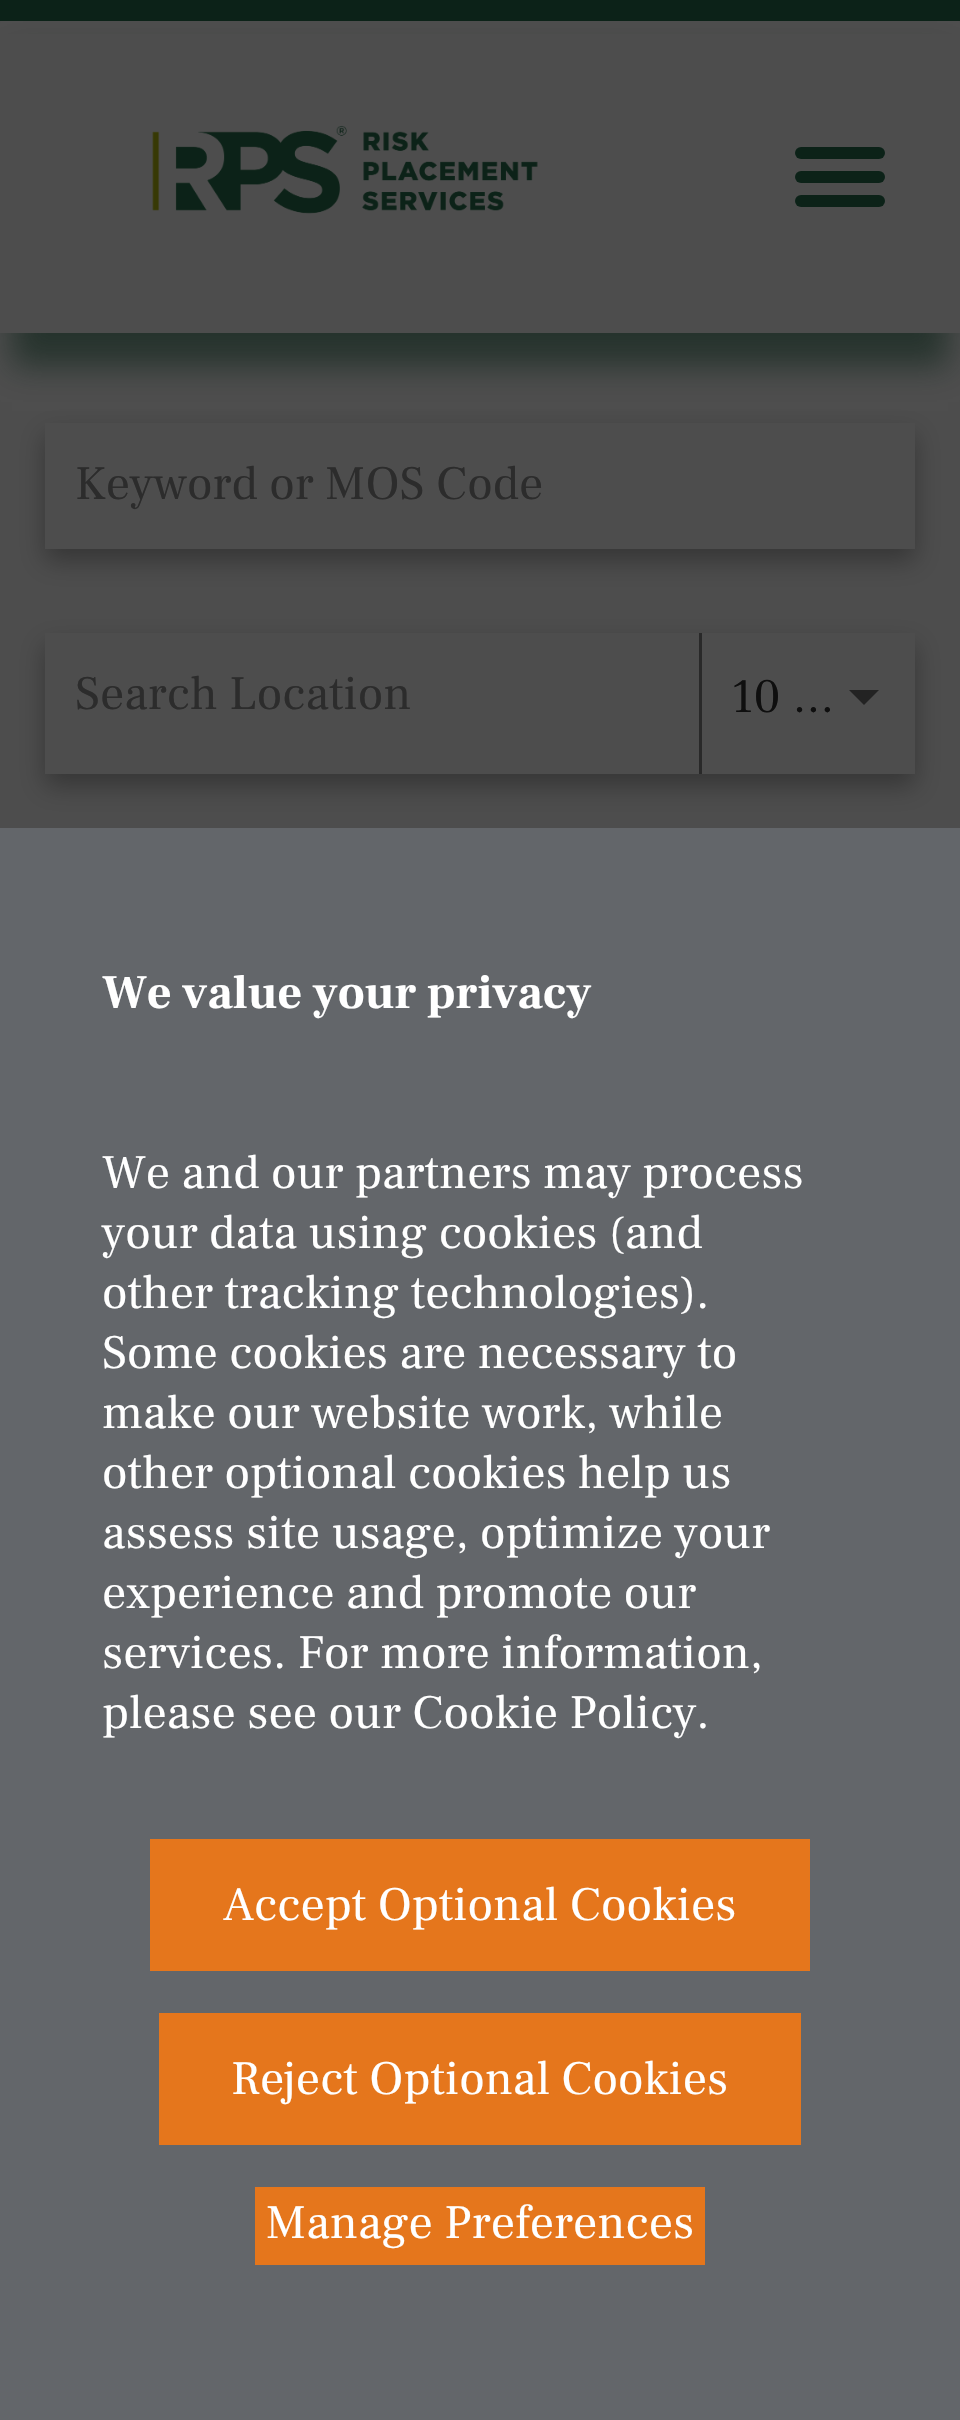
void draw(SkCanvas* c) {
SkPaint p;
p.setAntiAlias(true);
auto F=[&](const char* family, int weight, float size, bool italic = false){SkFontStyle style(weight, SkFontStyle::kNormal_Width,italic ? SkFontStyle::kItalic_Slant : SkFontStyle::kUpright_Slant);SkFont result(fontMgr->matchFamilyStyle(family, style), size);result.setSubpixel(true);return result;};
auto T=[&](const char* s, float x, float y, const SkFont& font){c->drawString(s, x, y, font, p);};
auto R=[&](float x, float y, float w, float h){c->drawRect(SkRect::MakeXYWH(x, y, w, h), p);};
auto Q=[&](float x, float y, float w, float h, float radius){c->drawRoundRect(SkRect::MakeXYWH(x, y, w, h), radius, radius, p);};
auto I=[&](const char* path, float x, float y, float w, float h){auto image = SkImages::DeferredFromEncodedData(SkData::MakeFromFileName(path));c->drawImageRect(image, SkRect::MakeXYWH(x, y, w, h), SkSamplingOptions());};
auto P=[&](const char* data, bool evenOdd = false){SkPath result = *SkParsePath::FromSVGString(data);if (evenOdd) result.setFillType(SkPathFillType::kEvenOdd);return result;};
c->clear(0xff4d4d4d);
p.setColor(0x990c2218);
p.setMaskFilter(SkMaskFilter::MakeBlur(kNormal_SkBlurStyle, 15));
c->drawRect(SkRect::MakeXYWH(12,57,936,309),p);
p.setMaskFilter(nullptr);
p.setColor(0xff0c2218);
R(0,0,960,21);
p.setColor(0xff4d4d4d);
R(0,34,960,299);
I("1.png",152,125,386,89);
p.setColor(0xff0c2218);
Q(795,171,90,12,6);
Q(795,147,90,12,6);
Q(795,195,90,12,6);
c->save();
c->clipPath(P("M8 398h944v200h-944zm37 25h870v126h-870z",true),true);
p.setColor(0x4d000000);
p.setMaskFilter(SkMaskFilter::MakeBlur(kNormal_SkBlurStyle, 12));
c->drawRect(SkRect::MakeXYWH(45,435,870,126),p);
p.setMaskFilter(nullptr);
c->restore();
auto f1 = F("Frank Ruhl Libre",400,48);
p.setColor(0xff2c2c2c);
T("Keyword or MOS Code",75,499,f1);
c->save();
c->clipPath(P("M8 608h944v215h-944zm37 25h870v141h-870z",true),true);
p.setColor(0x4d000000);
p.setMaskFilter(SkMaskFilter::MakeBlur(kNormal_SkBlurStyle, 12));
c->drawRect(SkRect::MakeXYWH(45,645,870,141),p);
p.setMaskFilter(nullptr);
c->restore();
p.setColor(0xff2c2c2c);
T("Search Location",75,709,f1);
p.setColor(0xff292929);
R(699,633,3,141);
p.setColor(0xff0f0f0f);
T("10 …",731,712,f1);
p.setColor(0xff232323);
c->drawPath(P("M849 690h30l-15 15z"),p);
p.setColor(0xff63666a);
R(0,828,960,1592);
auto f2 = F("Frank Ruhl Libre",700,48);
p.setColor(0xffffffff);
T("We value your privacy",102,1008,f2);
T("We and our partners may process",102,1188,f1);
T("your data using cookies (and",102,1248,f1);
T("other tracking technologies).",102,1308,f1);
T("Some cookies are necessary to",102,1368,f1);
T("make our website work, while",102,1428,f1);
T("other optional cookies help us",102,1488,f1);
T("assess site usage, optimize your",102,1548,f1);
T("experience and promote our",102,1608,f1);
T("services. For more information,",102,1668,f1);
T("please see our Cookie Policy.",102,1728,f1);
p.setColor(0xffe5761c);
R(150,1839,660,132);
p.setColor(0xffffffff);
T("Accept Optional Cookies",223,1920,f1);
p.setColor(0xffe5761c);
R(159,2013,642,132);
p.setColor(0xffffffff);
T("Reject Optional Cookies",231,2094,f1);
p.setColor(0xffe5761c);
R(255,2187,450,78);
p.setColor(0xffffffff);
T("Manage Preferences",266,2238,f1);
}
